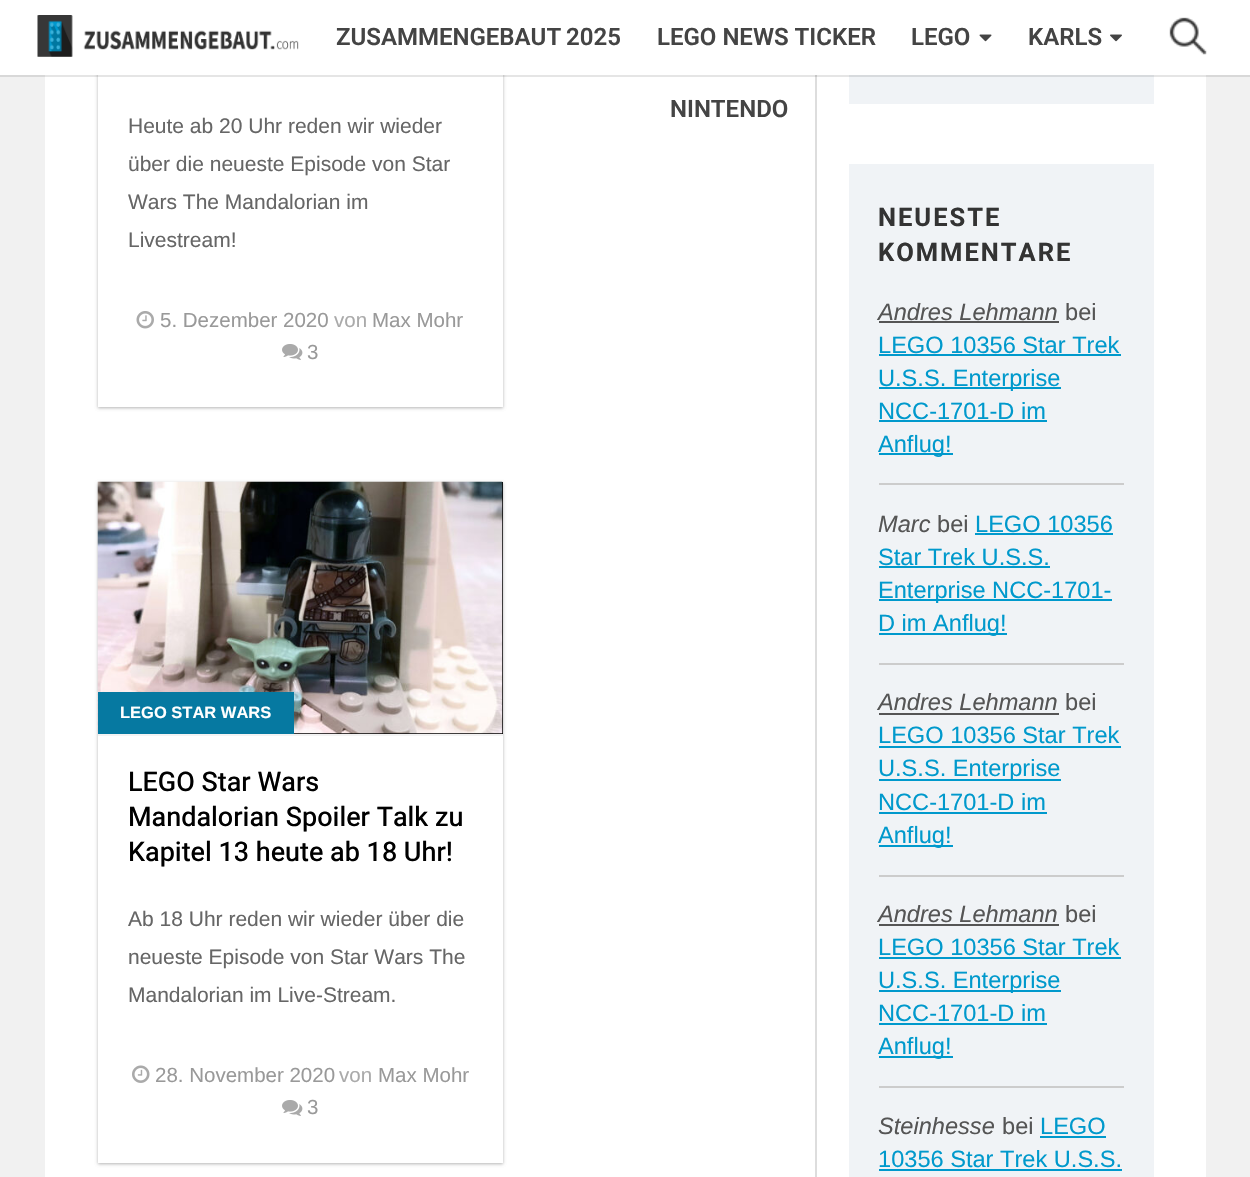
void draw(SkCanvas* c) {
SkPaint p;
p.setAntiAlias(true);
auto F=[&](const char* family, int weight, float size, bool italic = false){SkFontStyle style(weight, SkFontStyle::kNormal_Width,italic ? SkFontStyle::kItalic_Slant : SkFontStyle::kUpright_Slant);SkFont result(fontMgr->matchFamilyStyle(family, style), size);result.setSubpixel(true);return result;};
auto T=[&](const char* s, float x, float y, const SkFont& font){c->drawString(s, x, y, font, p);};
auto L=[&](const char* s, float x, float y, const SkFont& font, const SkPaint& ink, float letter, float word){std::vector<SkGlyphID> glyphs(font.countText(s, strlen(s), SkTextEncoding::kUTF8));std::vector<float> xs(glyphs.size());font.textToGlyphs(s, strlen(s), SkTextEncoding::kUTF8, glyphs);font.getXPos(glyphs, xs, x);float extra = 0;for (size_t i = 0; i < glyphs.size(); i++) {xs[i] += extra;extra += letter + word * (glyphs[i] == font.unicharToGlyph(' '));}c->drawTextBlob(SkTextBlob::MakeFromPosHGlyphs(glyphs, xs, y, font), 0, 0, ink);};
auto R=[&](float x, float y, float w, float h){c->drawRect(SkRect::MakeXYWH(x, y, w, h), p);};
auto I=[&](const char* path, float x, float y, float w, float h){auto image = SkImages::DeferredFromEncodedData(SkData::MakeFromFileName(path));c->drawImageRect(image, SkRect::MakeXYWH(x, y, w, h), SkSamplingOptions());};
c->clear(0xfff1f1f1);
p.setColor(0xffffffff);
R(45,75,1161,1102);
p.setColor(0xffdddddd);
R(815,75,2,1102);
p.setColor(0x33000000);
p.setMaskFilter(SkMaskFilter::MakeBlur(kNormal_SkBlurStyle, 1.5));
c->drawRect(SkRect::MakeXYWH(98,-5,405,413),p);
p.setMaskFilter(nullptr);
p.setColor(0x1a000000);
p.setMaskFilter(SkMaskFilter::MakeBlur(kNormal_SkBlurStyle, 1.5));
c->drawRect(SkRect::MakeXYWH(98,-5,405,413),p);
p.setMaskFilter(nullptr);
p.setColor(0xffffffff);
R(98,75,405,332);
p.setColor(0xfff0f3f6);
R(849,75,305,29);
p.setColor(0x1a000000);
R(0,75,1250,2);
p.setColor(0xffffffff);
R(0,0,1250,75);
I("1.png",37,15,262,42);
auto f1 = F("Roboto",600,24);
p.setColor(0xff444444);
L("ZUSAMMENGEBAUT 2025",336,45,f1,p,0,-1);
T("LEGO NEWS TICKER",657,45,f1);
T("LEGO",911,45,f1);
I("2.png",979,34,13,8);
T("KARLS",1028,45,f1);
I("3.png",1110,34,12,8);
T("NINTENDO",670,117,f1);
I("4.png",1169,17,38,38);
auto f2 = F("Liberation Sans",400,21);
p.setColor(0xff666666);
T("Heute ab 20 Uhr reden wir wieder",128,133,f2);
T("über die neueste Episode von Star",128,171,f2);
T("Wars The Mandalorian im",128,209,f2);
T("Livestream!",128,247,f2);
I("5.png",136,311,18,18);
auto f3 = F("Liberation Sans",400,20.5);
p.setColor(0xff999999);
T("5. Dezember 2020",160,327,f3);
p.setColor(0xffaaaaaa);
T("von",334,327,f3);
p.setColor(0xff999999);
T("Max Mohr",372,327,f3);
I("6.png",282,344,21,16);
T("3",307,359,f3);
p.setColor(0x33000000);
p.setMaskFilter(SkMaskFilter::MakeBlur(kNormal_SkBlurStyle, 1.5));
c->drawRect(SkRect::MakeXYWH(98,483,405,681),p);
p.setMaskFilter(nullptr);
p.setColor(0x1a000000);
p.setMaskFilter(SkMaskFilter::MakeBlur(kNormal_SkBlurStyle, 1.5));
c->drawRect(SkRect::MakeXYWH(98,483,405,681),p);
p.setMaskFilter(nullptr);
p.setColor(0xffffffff);
R(98,736,405,427);
p.setColor(0xff000000);
R(294,482,209,252);
p.setColor(0xfff3f3f3);
R(98,734,405,2);
I("7.png",97,481,406,253);
p.setColor(0xff0679a1);
R(98,692,196,42);
auto f4 = F("Liberation Sans",700,16.5);
p.setColor(0xffffffff);
T("LEGO STAR WARS",120,718,f4);
auto f5 = F("Heebo",500,27);
p.setColor(0xff000000);
T("LEGO Star Wars",128,791,f5);
T("Mandalorian Spoiler Talk zu",128,826,f5);
T("Kapitel 13 heute ab 18 Uhr!",128,861,f5);
p.setColor(0xff666666);
T("Ab 18 Uhr reden wir wieder über die",128,926,f2);
T("neueste Episode von Star Wars The",128,964,f2);
T("Mandalorian im Live-Stream.",128,1002,f2);
I("8.png",132,1065,18,18);
p.setColor(0xff999999);
T("28. November 2020",155,1082,f3);
p.setColor(0xffaaaaaa);
T("von",339,1082,f3);
p.setColor(0xff999999);
T("Max Mohr",378,1082,f3);
I("6.png",282,1100,21,16);
T("3",307,1114,f3);
p.setColor(0xfff0f3f6);
R(849,164,305,1013);
auto f6 = F("Roboto",700,25.5);
p.setColor(0xff333333);
L("NEUESTE",878,226,f6,p,2,0);
L("KOMMENTARE",878,261,f6,p,2,0);
auto f7 = F("Liberation Sans",400,23.6,true);
p.setColor(0xff555555);
T("Andres Lehmann",878,320,f7);
R(879,321,180,2);
auto f8 = F("Liberation Sans",400,23.6);
T("bei",1065,320,f8);
p.setColor(0xff0099cc);
T("LEGO 10356 Star Trek",878,353,f8);
R(879,354,242,2);
R(879,387,182,2);
T("U.S.S. Enterprise",878,386,f8);
T("NCC-1701-D im",878,419,f8);
R(879,420,168,2);
R(879,453,74,2);
T("Anflug!",878,452,f8);
p.setColor(0xffcccccc);
R(879,483,245,2);
p.setColor(0xff555555);
T("Marc",878,532,f7);
T("bei",937,532,f8);
p.setColor(0xff0099cc);
T("LEGO 10356",975,532,f8);
R(975,533,138,2);
T("Star Trek U.S.S.",878,565,f8);
R(879,566,171,2);
R(879,599,233,2);
T("Enterprise NCC-1701-",878,598,f8);
R(879,633,128,2);
T("D im Anflug!",878,631,f8);
p.setColor(0xffcccccc);
R(879,663,245,2);
p.setColor(0xff555555);
T("Andres Lehmann",878,710,f7);
R(879,713,180,2);
T("bei",1065,710,f8);
p.setColor(0xff0099cc);
T("LEGO 10356 Star Trek",878,743,f8);
R(879,746,242,2);
R(879,779,182,2);
T("U.S.S. Enterprise",878,776,f8);
T("NCC-1701-D im",878,810,f8);
R(879,812,168,2);
R(879,845,74,2);
T("Anflug!",878,843,f8);
p.setColor(0xffcccccc);
R(879,875,245,2);
p.setColor(0xff555555);
T("Andres Lehmann",878,922,f7);
R(879,924,180,2);
T("bei",1065,922,f8);
p.setColor(0xff0099cc);
T("LEGO 10356 Star Trek",878,955,f8);
R(879,957,242,2);
R(879,990,182,2);
T("U.S.S. Enterprise",878,988,f8);
T("NCC-1701-D im",878,1021,f8);
R(879,1023,168,2);
R(879,1056,74,2);
T("Anflug!",878,1054,f8);
p.setColor(0xffcccccc);
R(879,1086,245,2);
p.setColor(0xff555555);
T("Steinhesse",878,1134,f7);
T("bei",1002,1134,f8);
p.setColor(0xff0099cc);
T("LEGO",1040,1134,f8);
R(1040,1136,66,2);
T("10356 Star Trek U.S.S.",878,1167,f8);
R(879,1169,243,2);
}
